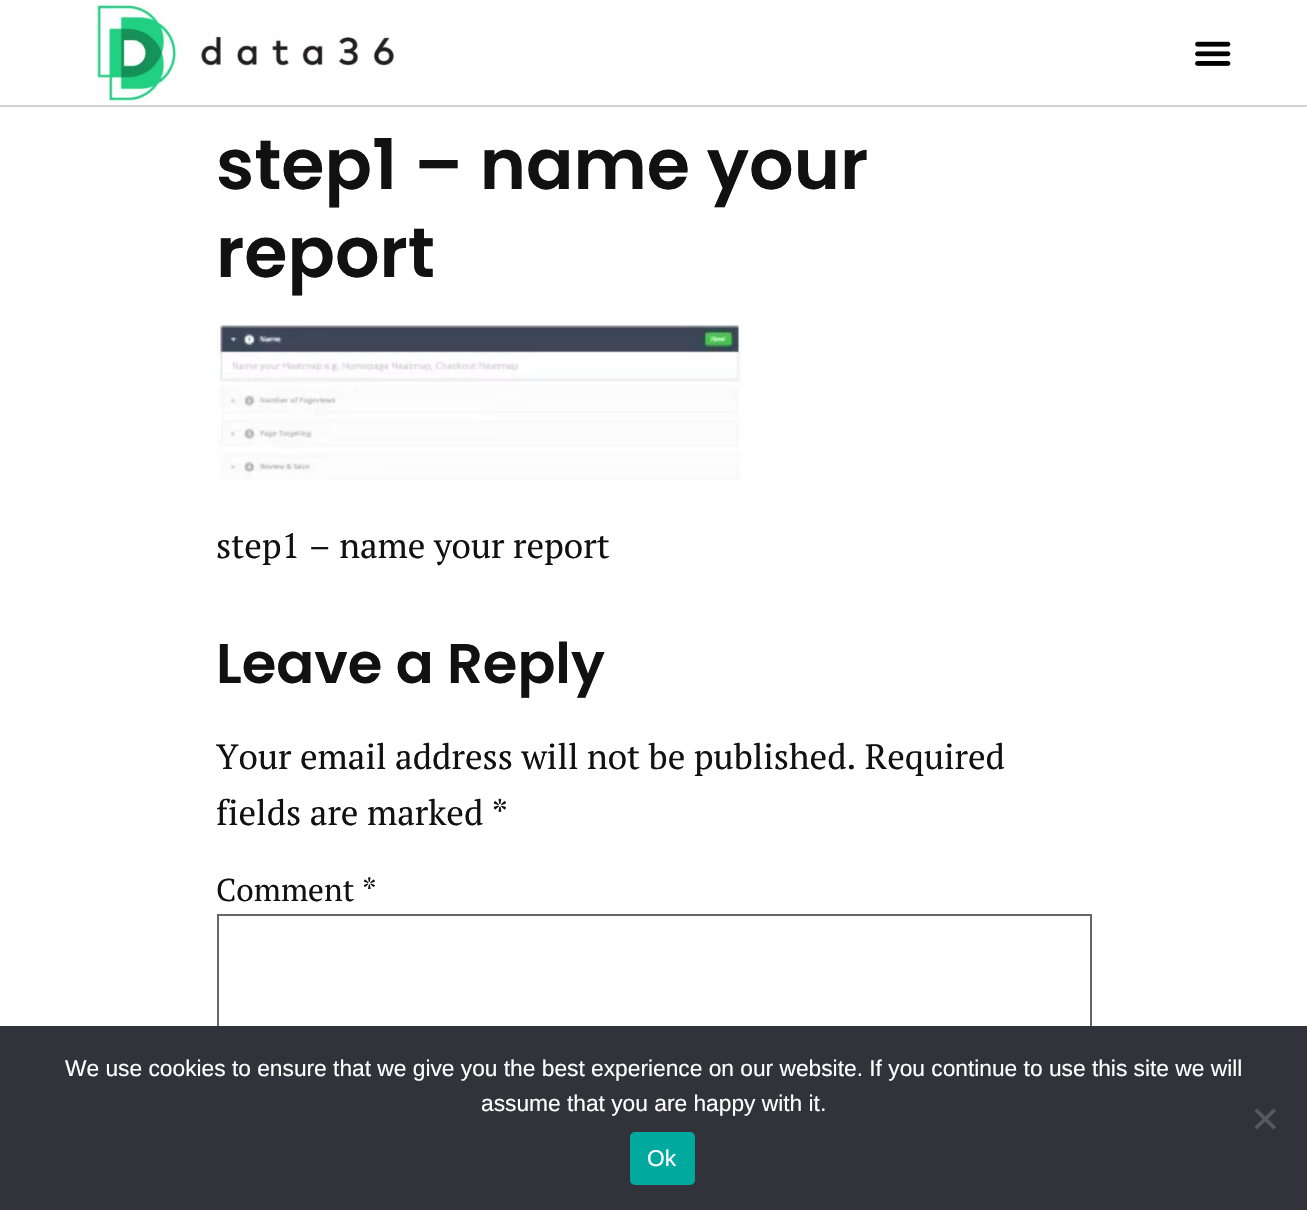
void draw(SkCanvas* c) {
SkPaint p;
p.setAntiAlias(true);
auto F=[&](const char* family, int weight, float size, bool italic = false){SkFontStyle style(weight, SkFontStyle::kNormal_Width,italic ? SkFontStyle::kItalic_Slant : SkFontStyle::kUpright_Slant);SkFont result(fontMgr->matchFamilyStyle(family, style), size);result.setSubpixel(true);return result;};
auto T=[&](const char* s, float x, float y, const SkFont& font){c->drawString(s, x, y, font, p);};
auto R=[&](float x, float y, float w, float h){c->drawRect(SkRect::MakeXYWH(x, y, w, h), p);};
auto Q=[&](float x, float y, float w, float h, float radius){c->drawRoundRect(SkRect::MakeXYWH(x, y, w, h), radius, radius, p);};
auto I=[&](const char* path, float x, float y, float w, float h){auto image = SkImages::DeferredFromEncodedData(SkData::MakeFromFileName(path));c->drawImageRect(image, SkRect::MakeXYWH(x, y, w, h), SkSamplingOptions());};
auto P=[&](const char* data, bool evenOdd = false){SkPath result = *SkParsePath::FromSVGString(data);if (evenOdd) result.setFillType(SkPathFillType::kEvenOdd);return result;};
c->clear(0xffffffff);
p.setColor(0xffd2d3da);
R(0,105,1307,2);
I("1.png",95,4,300,100);
I("2.png",1195,41,36,25);
auto f1 = F("Poppins",600,70);
p.setColor(0xff111111);
T("step1 – name your",216,189,f1);
T("report",216,277,f1);
I("3.png",217,324,525,156);
auto f2 = F("PT Serif",400,35);
T("step1 – name your report",216,558,f2);
auto f3 = F("Poppins",600,56);
T("Leave a Reply",216,683,f3);
T("Your email address will not be published. Required",216,769,f2);
T("fields are marked *",216,825,f2);
auto f4 = F("PT Serif",400,31.5);
T("Comment *",216,901,f4);
p.setStroke(true);
p.setStrokeWidth(2);
p.setColor(0xff666666);
c->drawRect(SkRect::MakeXYWH(218,915,873,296),p);
p.setStroke(false);
p.setColor(0xff32323a);
R(0,1026,1307,184);
auto f5 = F("Liberation Sans",400,22.75);
p.setColor(0xffffffff);
T("We use cookies to ensure that we give you the best experience on our website. If you continue to use this site we will",65,1076,f5);
T("assume that you are happy with it.",481,1111,f5);
p.setColor(0xff59595d);
c->drawPath(P("M1273.5 1108.5l2.5 2.5l-19 18.5l-2.5-2.5z"),p);
c->drawPath(P("M1254.5 1111l2.5-2.5l19 18.5l-2.5 2.5z"),p);
p.setColor(0xff00a99d);
Q(630,1132,65,53,5);
p.setColor(0xffffffff);
T("Ok",647,1166,f5);
}
